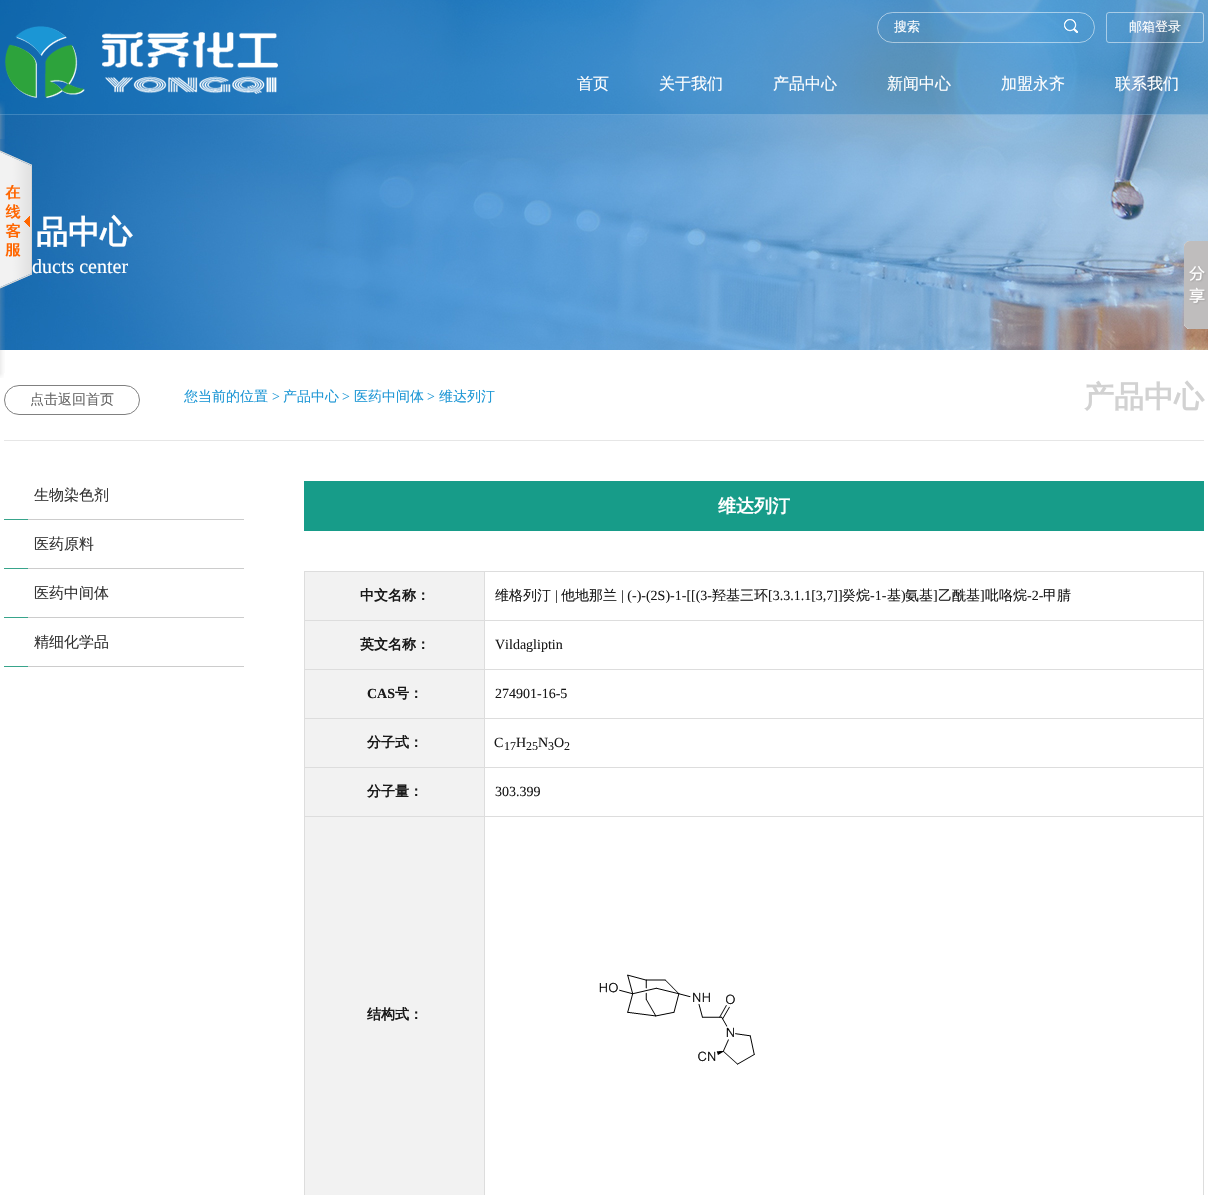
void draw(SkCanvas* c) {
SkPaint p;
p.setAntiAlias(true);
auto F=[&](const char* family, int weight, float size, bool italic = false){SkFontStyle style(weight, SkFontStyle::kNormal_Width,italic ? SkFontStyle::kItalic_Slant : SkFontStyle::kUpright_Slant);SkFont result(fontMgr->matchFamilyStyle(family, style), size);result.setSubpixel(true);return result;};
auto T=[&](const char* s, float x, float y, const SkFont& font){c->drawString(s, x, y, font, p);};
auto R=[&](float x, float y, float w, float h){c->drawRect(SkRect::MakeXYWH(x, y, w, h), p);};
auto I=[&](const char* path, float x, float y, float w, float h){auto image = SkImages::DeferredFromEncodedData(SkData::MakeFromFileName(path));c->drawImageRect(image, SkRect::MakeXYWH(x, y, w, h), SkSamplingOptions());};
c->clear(0xffffffff);
I("7.png",0,0,1208,350);
I("3.png",0,101,5,38);
p.setColor(0x4d016ab5);
R(0,0,1208,115);
p.setColor(0x2effffff);
R(0,114,1208,1);
I("1.png",5,26,273,72);
p.setStroke(true);
p.setStrokeWidth(1);
p.setColor(0x80ffffff);
c->drawRoundRect(SkRect::MakeXYWH(877.5,12.5,217,30),15,15,p);
auto f1 = F("WenQuanYi Zen Hei",500,13);
p.setStroke(false);
p.setColor(0xffffffff);
T("搜索",894,31,f1);
I("2.png",1064,19,14,14);
p.setStroke(true);
p.setColor(0x80ffffff);
c->drawRoundRect(SkRect::MakeXYWH(1106.5,12.5,97,30),2.5,2.5,p);
p.setStroke(false);
p.setColor(0xffffffff);
T("邮箱登录",1129,31,f1);
auto f2 = F("WenQuanYi Zen Hei",500,16);
T("首页",577,89,f2);
T("关于我们",659,89,f2);
T("产品中心",773,89,f2);
T("新闻中心",887,89,f2);
T("加盟永齐",1001,89,f2);
T("联系我们",1115,89,f2);
I("4.png",0,139,5,234);
I("5.png",0,373,4,5);
I("6.png",0,150,32,139);
auto f3 = F("WenQuanYi Zen Hei",700,32);
T("品中心",36,243,f3);
auto f4 = F("Liberation Serif",400,20);
T("ducts center",32,273,f4);
I("8.png",1184,241,24,88);
p.setColor(0xffe6e6e6);
R(4,440,1200,1);
p.setStroke(true);
p.setColor(0xff808080);
c->drawRoundRect(SkRect::MakeXYWH(4.5,385.5,135,29),14.5,14.5,p);
auto f5 = F("WenQuanYi Zen Hei",500,14);
p.setStroke(false);
p.setColor(0xff666666);
T("点击返回首页",30,404,f5);
p.setColor(0xff1b96d5);
T("您当前的位置",184,401,f5);
auto f6 = F("Liberation Serif",400,14);
T(">",272,401,f6);
T("产品中心",283,401,f5);
T(">",342,401,f6);
T("医药中间体",354,401,f5);
T(">",427,401,f6);
T("维达列汀",439,401,f5);
auto f7 = F("WenQuanYi Zen Hei",700,30);
p.setColor(0xffd2d2d2);
T("产品中心",1084,407,f7);
p.setColor(0xffcccccc);
R(28,519,216,1);
auto f8 = F("WenQuanYi Zen Hei",500,15);
p.setColor(0xff333333);
T("生物染色剂",34,500,f8);
p.setColor(0xff38a48b);
R(4,519,24,1);
p.setColor(0xffcccccc);
R(28,568,216,1);
p.setColor(0xff333333);
T("医药原料",34,549,f8);
p.setColor(0xff38a48b);
R(4,568,24,1);
p.setColor(0xffcccccc);
R(28,617,216,1);
p.setColor(0xff333333);
T("医药中间体",34,598,f8);
p.setColor(0xff38a48b);
R(4,617,24,1);
p.setColor(0xffcccccc);
R(28,666,216,1);
p.setColor(0xff333333);
T("精细化学品",34,647,f8);
p.setColor(0xff38a48b);
R(4,666,24,1);
p.setColor(0xff179c89);
R(304,481,900,50);
auto f9 = F("WenQuanYi Zen Hei",700,18);
p.setColor(0xffffffff);
T("维达列汀",718,512,f9);
p.setColor(0xffdddddd);
R(304,571,900,624);
p.setColor(0xfff2f2f2);
R(305,572,179,48);
auto f10 = F("WenQuanYi Zen Hei",700,14);
p.setColor(0xff191919);
T("中文名称：",360,600,f10);
p.setColor(0xffffffff);
R(485,572,718,48);
p.setColor(0xff191919);
T("维格列汀",495,600,f5);
T("|",555,600,f6);
T("他地那兰",561,600,f5);
T("| (-)-(2S)-1-[[(3-",621,600,f6);
T("羟基三环",712,600,f5);
T("[3.3.1.1[3,7]]",768,600,f6);
T("癸烷",842,600,f5);
T("-1-",870,600,f6);
T("基",887,600,f5);
T(")",901,600,f6);
T("氨基",905,600,f5);
T("]",933,600,f6);
T("乙酰基",938,600,f5);
T("]",980,600,f6);
T("吡咯烷",985,600,f5);
T("-2-",1027,600,f6);
T("甲腈",1043,600,f5);
p.setColor(0xfff2f2f2);
R(305,621,179,48);
p.setColor(0xff191919);
T("英文名称：",360,649,f10);
p.setColor(0xffffffff);
R(485,621,718,48);
p.setColor(0xff191919);
T("Vildagliptin",495,649,f6);
p.setColor(0xfff2f2f2);
R(305,670,179,48);
auto f11 = F("Liberation Serif",700,14);
p.setColor(0xff191919);
T("CAS",367,698,f11);
T("号：",395,698,f10);
p.setColor(0xffffffff);
R(485,670,718,48);
p.setColor(0xff191919);
T("274901-16-5",495,698,f6);
p.setColor(0xfff2f2f2);
R(305,719,179,48);
p.setColor(0xff191919);
T("分子式：",367,747,f10);
p.setColor(0xffffffff);
R(485,719,718,48);
p.setColor(0xff191919);
T("C",494,747,f6);
auto f12 = F("Liberation Serif",400,12);
T("17",504,750,f12);
T("H",516,747,f6);
T("25",526,750,f12);
T("N",538,747,f6);
T("3",548,750,f12);
T("O",554,747,f6);
T("2",564,750,f12);
p.setColor(0xfff2f2f2);
R(305,768,179,48);
p.setColor(0xff191919);
T("分子量：",367,796,f10);
p.setColor(0xffffffff);
R(485,768,718,48);
p.setColor(0xff191919);
T("303.399",495,796,f6);
p.setColor(0xfff2f2f2);
R(305,817,179,378);
p.setColor(0xff191919);
T("结构式：",367,1019,f10);
p.setColor(0xffffffff);
R(485,817,718,378);
I("9.png",599,974,156,91);
}
